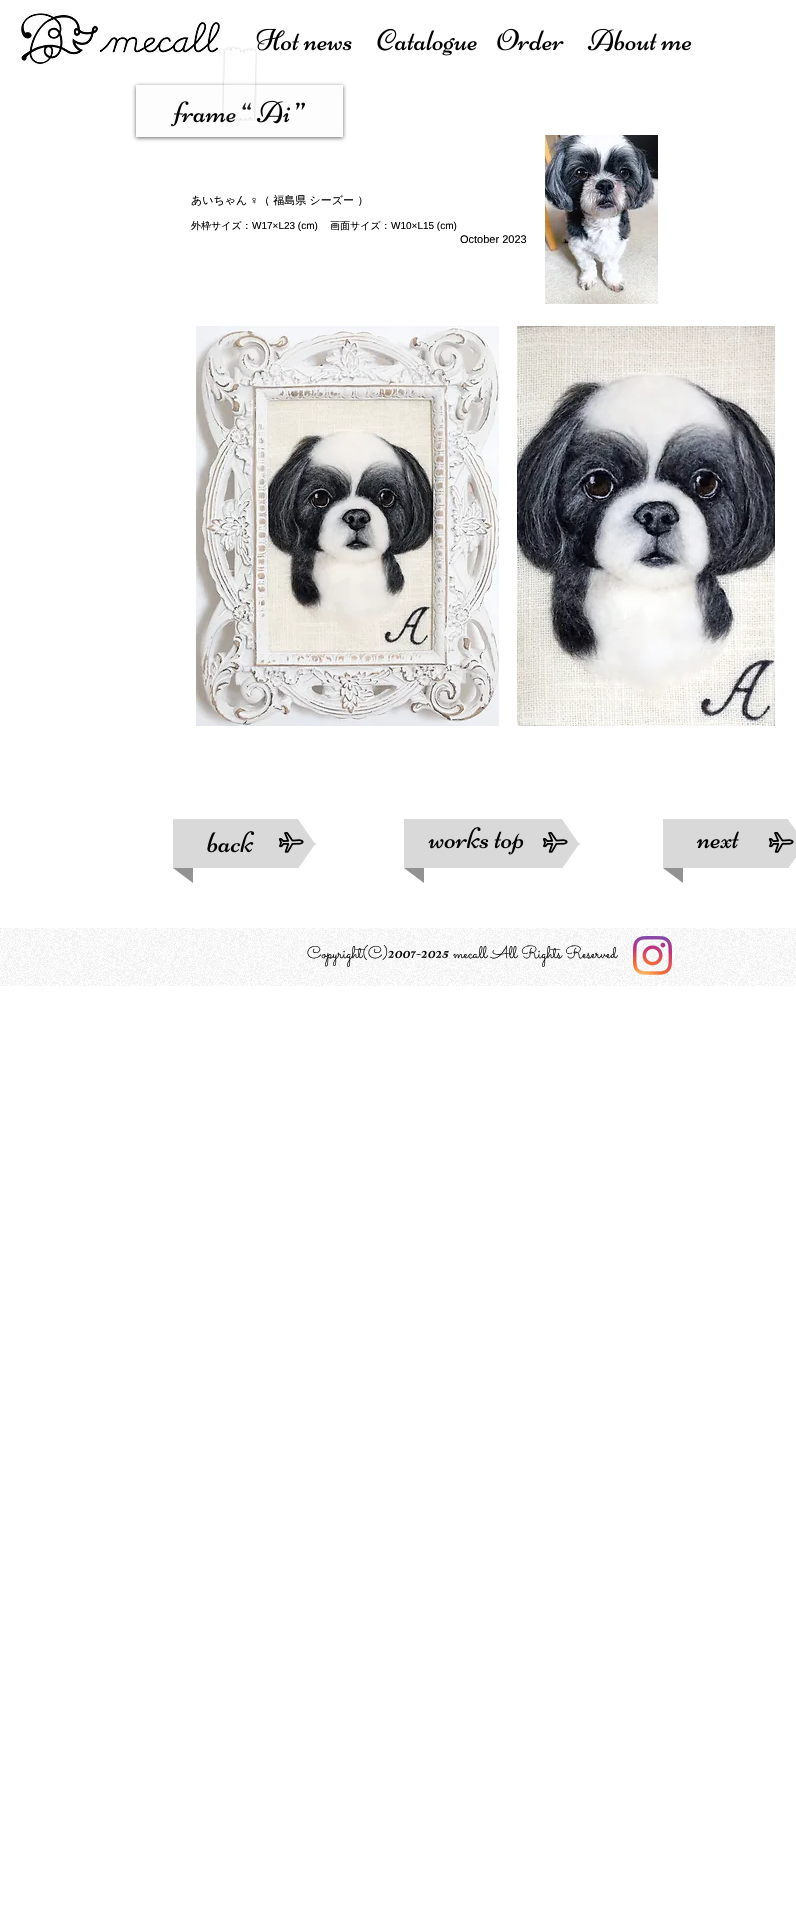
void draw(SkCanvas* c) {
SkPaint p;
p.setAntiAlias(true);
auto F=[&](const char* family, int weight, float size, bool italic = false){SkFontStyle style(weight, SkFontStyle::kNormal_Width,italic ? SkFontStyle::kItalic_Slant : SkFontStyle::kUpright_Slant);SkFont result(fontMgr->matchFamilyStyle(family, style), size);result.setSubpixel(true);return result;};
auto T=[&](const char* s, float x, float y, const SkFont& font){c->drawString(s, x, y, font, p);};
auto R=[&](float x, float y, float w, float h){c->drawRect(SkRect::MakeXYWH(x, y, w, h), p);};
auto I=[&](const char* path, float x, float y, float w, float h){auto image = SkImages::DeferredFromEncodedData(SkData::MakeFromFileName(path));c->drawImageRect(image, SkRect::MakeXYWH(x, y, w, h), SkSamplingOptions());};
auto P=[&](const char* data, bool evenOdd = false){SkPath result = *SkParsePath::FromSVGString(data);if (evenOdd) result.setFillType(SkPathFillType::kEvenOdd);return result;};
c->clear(0xffffffff);
I("1.png",21,13,200,52);
I("2.png",256,28,96,23);
I("3.png",377,28,20,23);
I("4.png",395,30,82,26);
I("5.png",497,28,67,23);
I("6.png",587,28,105,24);
p.setColor(0x99000000);
p.setMaskFilter(SkMaskFilter::MakeBlur(kNormal_SkBlurStyle, 2));
c->drawRect(SkRect::MakeXYWH(136,86,207,52),p);
p.setMaskFilter(nullptr);
p.setColor(0xfffdfdfd);
R(136,85,207,52);
I("8.png",170,100,135,27);
I("7.png",222,46,35,75);
auto f1 = F("WenQuanYi Zen Hei",500,11);
p.setColor(0xff000000);
T("あいちゃん",191,204,f1);
auto f2 = F("Liberation Sans",400,11);
T("♀",250,204,f2);
T("（ 福島県 シーズー ）",259,204,f1);
auto f3 = F("WenQuanYi Zen Hei",500,10);
T("外枠サイズ：",191,229,f3);
auto f4 = F("Liberation Sans",400,10);
T("W17×L23 (cm)",252,229,f4);
T("画面サイズ：",330,229,f3);
T("W10×L15 (cm)",391,229,f4);
T("October 2023",460,243,f2);
I("9.png",545,135,113,169);
I("10.png",196,326,303,400);
I("11.png",517,326,258,400);
c->save();
c->clipRect(SkRect::MakeXYWH(173,819,143,49));
p.setColor(0xffd9d9d9);
c->drawPath(P("M-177 843h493l-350 499h-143z"),p);
c->drawPath(P("M316 845h-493v-499h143z"),p);
c->restore();
I("12.png",207,831,48,22);
I("13.png",278,832,26,21);
p.setColor(0xff929292);
c->drawPath(P("M193 868v15l-20-15z"),p);
c->save();
c->clipRect(SkRect::MakeXYWH(404,819,176,49));
p.setColor(0xffd9d9d9);
c->drawPath(P("M54 843h526l-350 499h-176z"),p);
c->drawPath(P("M580 845h-526v-499h176z"),p);
c->restore();
I("14.png",428,827,96,28);
I("13.png",542,832,26,21);
p.setColor(0xff929292);
c->drawPath(P("M424 868v15l-20-15z"),p);
c->save();
c->clipRect(SkRect::MakeXYWH(663,819,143,49));
p.setColor(0xffd9d9d9);
c->drawPath(P("M313 843h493l-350 499h-143z"),p);
c->drawPath(P("M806 845h-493v-499h143z"),p);
c->restore();
I("15.png",696,831,43,18);
I("13.png",768,832,26,21);
p.setColor(0xff929292);
c->drawPath(P("M683 868v15l-20-15z"),p);
I("16.png",0,928,796,58);
auto f5 = F("Sacramento",400,17);
p.setColor(0xff000000);
T("Copyright(C)",307,958,f5);
I("17.png",388,950,61,9);
T("mecall All Rights Reserved",453,958,f5);
I("18.png",633,936,39,39);
}
